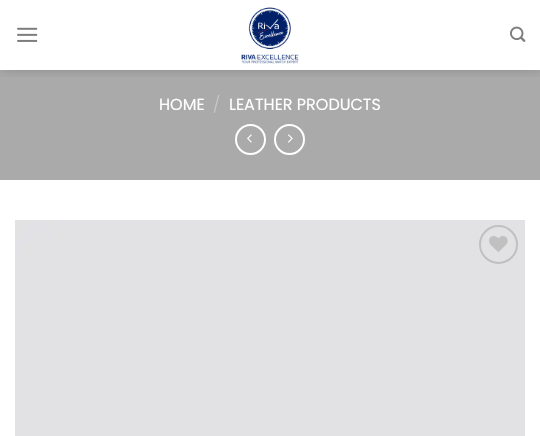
void draw(SkCanvas* c) {
SkPaint p;
p.setAntiAlias(true);
auto F=[&](const char* family, int weight, float size, bool italic = false){SkFontStyle style(weight, SkFontStyle::kNormal_Width,italic ? SkFontStyle::kItalic_Slant : SkFontStyle::kUpright_Slant);SkFont result(fontMgr->matchFamilyStyle(family, style), size);result.setSubpixel(true);return result;};
auto T=[&](const char* s, float x, float y, const SkFont& font){c->drawString(s, x, y, font, p);};
auto R=[&](float x, float y, float w, float h){c->drawRect(SkRect::MakeXYWH(x, y, w, h), p);};
auto I=[&](const char* path, float x, float y, float w, float h){auto image = SkImages::DeferredFromEncodedData(SkData::MakeFromFileName(path));c->drawImageRect(image, SkRect::MakeXYWH(x, y, w, h), SkSamplingOptions());};
c->clear(0xffffffff);
p.setColor(0xffaaaaab);
R(0,70,540,110);
c->save();
c->clipRect(SkRect::MakeXYWH(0,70,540,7));
p.setColor(0x26000000);
p.setMaskFilter(SkMaskFilter::MakeBlur(kNormal_SkBlurStyle, 5));
c->drawRect(SkRect::MakeXYWH(1,1,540,70),p);
p.setMaskFilter(nullptr);
c->restore();
I("1.png",17,27,21,15);
I("2.png",241,7,58,57);
I("3.png",510,26,16,16);
p.setColor(0xff999999);
R(15,70,510,1);
auto f1 = F("Poppins",400,16);
p.setColor(0xffffffff);
T("HOME",159,110,f1);
auto f2 = F("Poppins",300,16);
p.setColor(0xffc8c8c8);
T("/",213,110,f2);
p.setColor(0xffffffff);
T("LEATHER PRODUCTS",229,110,f1);
p.setStroke(true);
p.setStrokeWidth(2);
c->drawCircle(250.5,139.5,14.5,p);
I("4.png",247,134,5,9);
c->drawCircle(289.5,139.5,14.5,p);
I("5.png",288,134,5,9);
I("6.png",15,220,510,216);
p.setColor(0xffc0c0c0);
c->drawCircle(498.5,244.5,18.5,p);
I("7.png",489,236,19,16);
}
